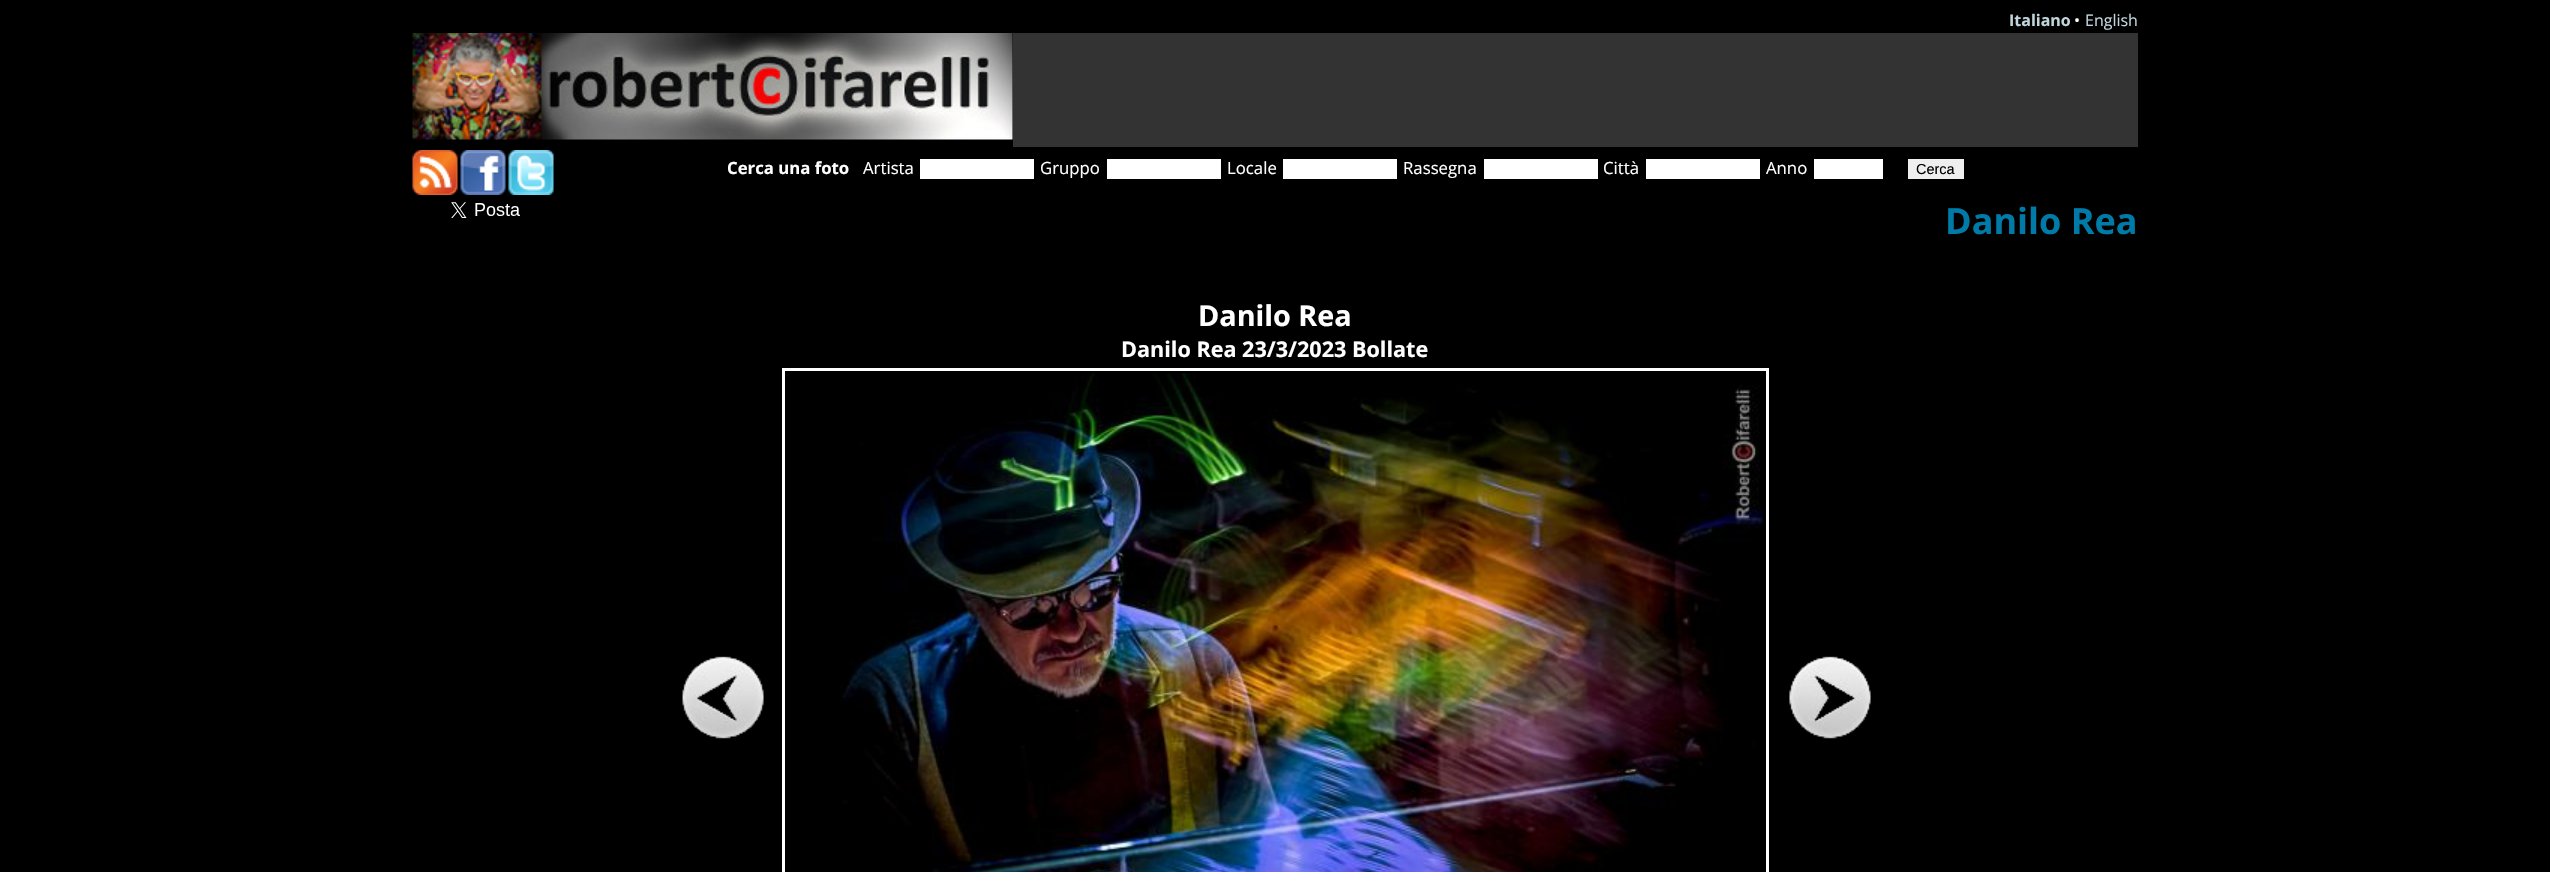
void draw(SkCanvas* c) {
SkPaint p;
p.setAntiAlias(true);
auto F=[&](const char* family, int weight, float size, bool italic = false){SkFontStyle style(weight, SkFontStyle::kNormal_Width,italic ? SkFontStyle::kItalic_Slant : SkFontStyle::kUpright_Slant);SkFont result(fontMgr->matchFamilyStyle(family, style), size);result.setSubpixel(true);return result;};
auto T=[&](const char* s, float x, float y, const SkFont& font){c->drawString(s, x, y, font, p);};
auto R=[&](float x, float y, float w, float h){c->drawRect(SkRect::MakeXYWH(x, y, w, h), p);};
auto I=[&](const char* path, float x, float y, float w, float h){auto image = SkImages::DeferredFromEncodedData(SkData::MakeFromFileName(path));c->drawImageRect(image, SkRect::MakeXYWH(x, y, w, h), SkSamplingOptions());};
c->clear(0xff000000);
auto f1 = F("Open Sans",700,16);
p.setColor(0xffc0d5dc);
T("Italiano",2009,26,f1);
auto f2 = F("Open Sans",400,16);
p.setColor(0xffffffff);
T("•",2074,26,f2);
p.setColor(0xffc0d5dc);
T("English",2085,26,f2);
I("1.png",412,33,601,107);
p.setColor(0xff333333);
R(1013,33,1125,114);
I("2.png",412,150,46,45);
I("3.png",460,150,46,45);
I("4.png",508,150,46,45);
auto f3 = F("Open Sans",700,16.75);
p.setColor(0xffffffff);
T("Cerca una foto",727,174,f3);
auto f4 = F("Open Sans",400,16.75);
T("Artista",863,174,f4);
R(920,159,114,20);
T("Gruppo",1040,174,f4);
R(1107,159,114,20);
T("Locale",1227,174,f4);
R(1283,159,114,20);
T("Rassegna",1403,174,f4);
R(1484,159,114,20);
T("Città",1603,174,f4);
R(1646,159,114,20);
T("Anno",1766,174,f4);
R(1814,159,69,20);
p.setColor(0xffefefef);
R(1908,159,56,20);
auto f5 = F("Liberation Sans",400,14.5);
p.setColor(0xff000000);
T("Cerca",1916,174,f5);
I("5.png",451,202,70,16);
auto f6 = F("Open Sans",700,36);
p.setColor(0xff007ba7);
T("Danilo Rea",1945,234,f6);
auto f7 = F("Open Sans",700,28.75);
p.setColor(0xffffffff);
T("Danilo Rea",1198,326,f7);
auto f8 = F("Open Sans",700,21.6);
T("Danilo Rea 23/3/2023 Bollate",1121,357,f8);
I("6.png",682,656,82,83);
p.setStroke(true);
p.setStrokeWidth(3);
c->drawRect(SkRect::MakeXYWH(783.5,369.5,984,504),p);
I("7.png",840,373,923,499);
I("8.png",1789,656,82,83);
}
